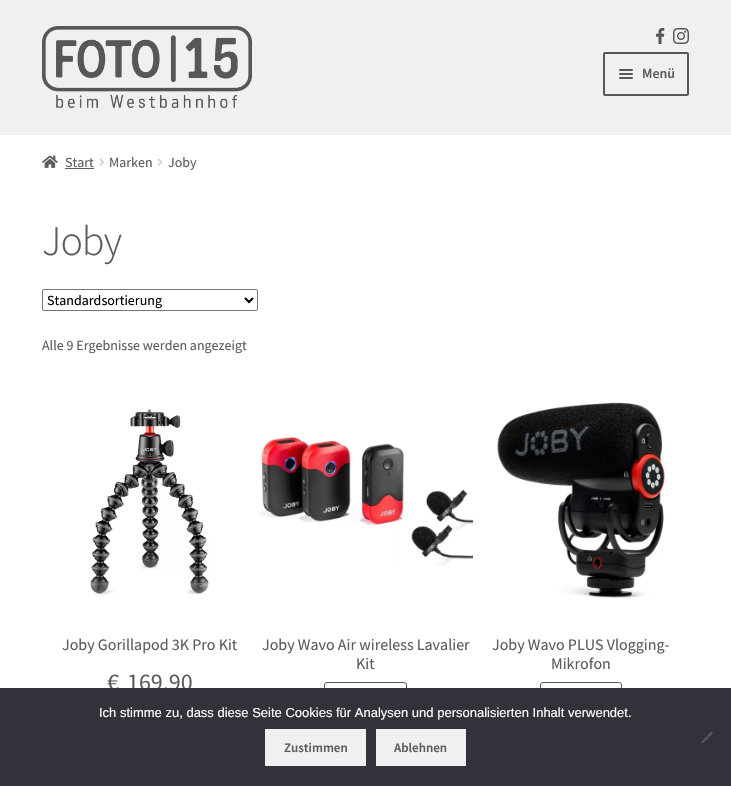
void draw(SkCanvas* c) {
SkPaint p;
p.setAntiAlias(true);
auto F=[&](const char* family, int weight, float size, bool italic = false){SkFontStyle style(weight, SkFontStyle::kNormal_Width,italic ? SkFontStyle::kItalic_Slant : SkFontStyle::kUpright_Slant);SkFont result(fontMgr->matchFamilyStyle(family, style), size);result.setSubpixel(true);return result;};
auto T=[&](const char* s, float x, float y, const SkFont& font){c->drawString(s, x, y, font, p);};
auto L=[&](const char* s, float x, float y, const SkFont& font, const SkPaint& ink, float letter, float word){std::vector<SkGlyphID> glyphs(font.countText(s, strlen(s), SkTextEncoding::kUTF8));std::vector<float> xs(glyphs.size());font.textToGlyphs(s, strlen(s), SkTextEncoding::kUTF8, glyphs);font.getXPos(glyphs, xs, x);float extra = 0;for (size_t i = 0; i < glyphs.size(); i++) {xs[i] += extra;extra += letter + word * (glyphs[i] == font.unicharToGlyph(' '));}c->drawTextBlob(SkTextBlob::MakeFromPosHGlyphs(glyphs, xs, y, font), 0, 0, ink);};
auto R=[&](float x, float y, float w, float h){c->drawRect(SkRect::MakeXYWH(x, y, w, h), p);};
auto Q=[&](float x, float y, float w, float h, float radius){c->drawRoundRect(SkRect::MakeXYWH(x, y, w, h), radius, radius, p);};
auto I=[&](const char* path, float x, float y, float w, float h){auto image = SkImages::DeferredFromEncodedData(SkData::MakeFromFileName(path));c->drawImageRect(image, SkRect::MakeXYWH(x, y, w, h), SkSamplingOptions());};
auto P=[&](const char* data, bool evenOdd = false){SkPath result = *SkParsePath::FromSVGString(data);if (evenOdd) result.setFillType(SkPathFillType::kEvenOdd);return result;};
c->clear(0xffffffff);
p.setColor(0xfff0f0f0);
R(0,0,731,135);
I("1.png",42,26,210,82);
I("2.png",656,28,9,16);
I("3.png",673,28,16,16);
p.setStroke(true);
p.setStrokeWidth(2);
p.setColor(0xff575756);
c->drawRoundRect(SkRect::MakeXYWH(604,53,84,42),1,1,p);
p.setStroke(false);
Q(619,69,14,2,1);
Q(619,73,14,2,1);
auto f1 = F("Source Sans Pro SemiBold",600,14);
p.setColor(0xff5c5c5b);
T("Menü",642,78,f1);
p.setColor(0xff575756);
Q(619,77,14,2,1);
I("4.png",42,155,16,13);
auto f2 = F("Source Sans Pro",400,14);
p.setColor(0xff5c5c5b);
T("Start",65,167,f2);
R(65,168,29,1);
I("5.png",99,158,6,8);
T("Marken",109,167,f2);
I("5.png",157,158,6,8);
T("Joby",168,167,f2);
auto f3 = F("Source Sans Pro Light",300,42);
L("Joby",42,255,f3,p,-1,0);
p.setStroke(true);
p.setStrokeWidth(1);
p.setColor(0xff767676);
c->drawRoundRect(SkRect::MakeXYWH(42.5,289.5,215,21),1.5,1.5,p);
p.setStrokeWidth(2);
p.setColor(0xff000000);
c->drawPath(P("M245 298l4 4l4-4"),p);
p.setStroke(false);
T("Standardsortierung",47,305,f2);
p.setColor(0xff5c5c5b);
T("Alle 9 Ergebnisse werden angezeigt",42,350,f2);
I("6.png",90,409,120,188);
auto f4 = F("Source Sans Pro",400,16);
T("Joby Gorillapod 3K Pro Kit",62,650,f4);
auto f5 = F("Source Sans Pro",400,24);
T("€",107,690,f5);
T("169,90",127,690,f5);
I("7.png",258,436,215,130);
T("Joby Wavo Air wireless Lavalier",262,650,f4);
T("Kit",356,669,f4);
p.setStroke(true);
p.setStrokeWidth(1);
p.setColor(0xff575756);
c->drawRoundRect(SkRect::MakeXYWH(324.5,682.5,82,30),2.5,2.5,p);
I("8.png",497,402,170,196);
p.setStroke(false);
p.setColor(0xff5c5c5b);
T("Joby Wavo PLUS Vlogging-",492,650,f4);
T("Mikrofon",551,669,f4);
p.setStroke(true);
p.setColor(0xff575756);
c->drawRoundRect(SkRect::MakeXYWH(540.5,682.5,81,30),2.5,2.5,p);
p.setStroke(false);
p.setColor(0xff32323a);
R(0,688,731,98);
auto f6 = F("Liberation Sans",400,13);
p.setColor(0xffffffff);
T("Ich stimme zu, dass diese Seite Cookies für Analysen und personalisierten Inhalt verwendet.",99,717,f6);
p.setColor(0xff59595d);
c->drawPath(P("M711.5 731.5l1.5 1.5l-10.5 10.5l-1.5-1.5z"),p);
p.setColor(0xfff0f0f0);
R(265,729,101,37);
auto f7 = F("Source Sans Pro SemiBold",600,13);
p.setColor(0xff5c5c5b);
T("Zustimmen",284,752,f7);
p.setColor(0xfff0f0f0);
R(376,729,90,37);
p.setColor(0xff5c5c5b);
T("Ablehnen",394,752,f7);
}
